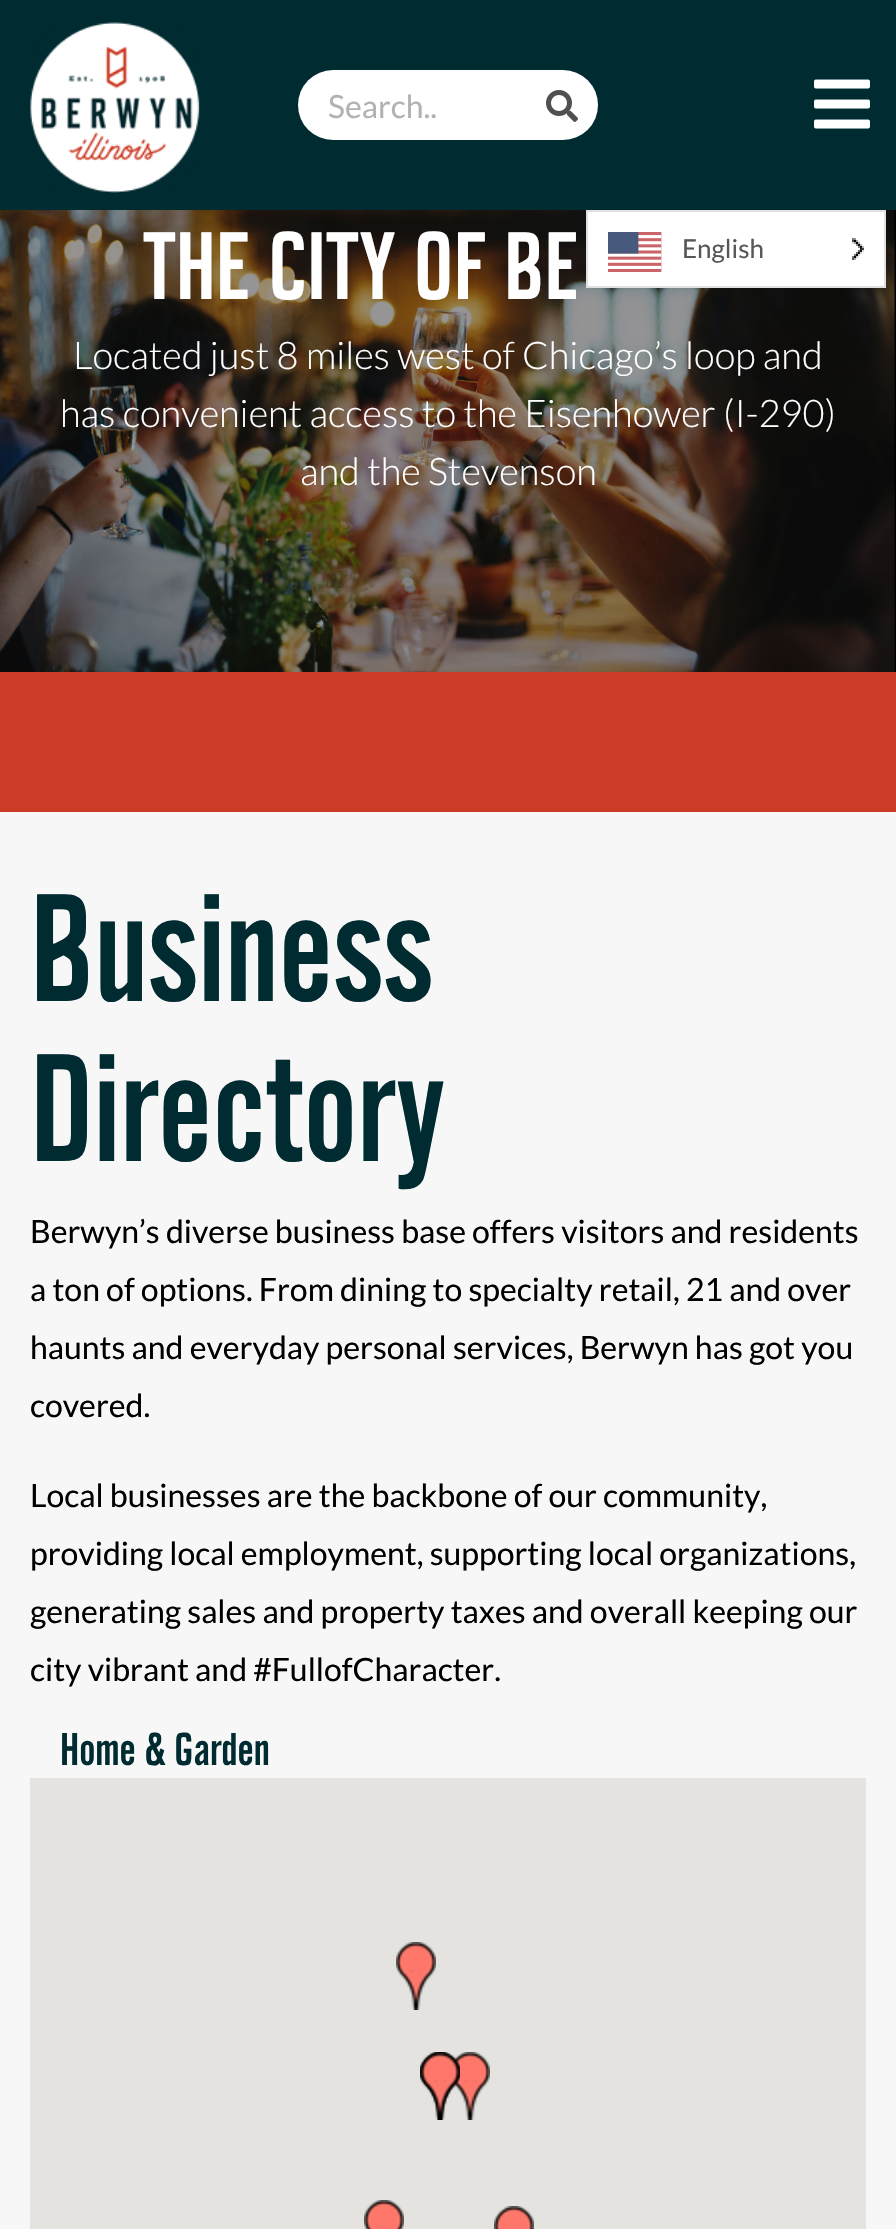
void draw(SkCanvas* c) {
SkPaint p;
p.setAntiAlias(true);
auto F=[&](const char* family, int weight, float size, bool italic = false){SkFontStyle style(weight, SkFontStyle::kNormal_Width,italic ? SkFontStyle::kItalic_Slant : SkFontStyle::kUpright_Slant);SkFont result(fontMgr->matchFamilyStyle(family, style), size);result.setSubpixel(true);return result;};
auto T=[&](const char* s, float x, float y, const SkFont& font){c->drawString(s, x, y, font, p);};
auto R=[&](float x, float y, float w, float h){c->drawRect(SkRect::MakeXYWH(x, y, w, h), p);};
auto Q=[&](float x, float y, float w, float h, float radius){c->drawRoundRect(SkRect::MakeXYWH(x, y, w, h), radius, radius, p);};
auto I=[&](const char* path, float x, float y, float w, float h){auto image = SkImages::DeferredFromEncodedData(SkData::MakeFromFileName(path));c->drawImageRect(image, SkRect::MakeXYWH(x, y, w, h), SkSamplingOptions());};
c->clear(0xffcc3b25);
p.setColor(0xff002b31);
R(0,0,896,210);
I("1.png",30,22,170,171);
p.setColor(0xffffffff);
Q(298,70,300,70,35);
auto f1 = F("Lato",400,32);
p.setColor(0xffb2b2b2);
T("Search..",328,118,f1);
I("2.png",546,90,32,32);
I("3.png",814,79,56,50);
I("4.png",0,210,896,462);
auto f2 = F("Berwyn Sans",500,100);
p.setColor(0xffffffff);
T("THE CITY OF BE",143,299,f2);
auto f3 = F("Lato",300,38);
T("Located just 8 miles west of Chicago’s loop and",73,369,f3);
T("has convenient access to the Eisenhower (I-290)",60,427,f3);
T("and the Stevenson",300,485,f3);
p.setColor(0xfff7f7f7);
R(0,812,896,1417);
auto f4 = F("Berwyn Sans",500,160);
p.setColor(0xff002b31);
T("Business",30,1001,f4);
T("Directory",30,1161,f4);
p.setColor(0xff000000);
T("Berwyn’s diverse business base offers visitors and residents",30,1243,f1);
T("a ton of options. From dining to specialty retail, 21 and over",30,1301,f1);
T("haunts and everyday personal services, Berwyn has got you",30,1359,f1);
T("covered.",30,1417,f1);
T("Local businesses are the backbone of our community,",30,1507,f1);
T("providing local employment, supporting local organizations,",30,1565,f1);
T("generating sales and property taxes and overall keeping our",30,1623,f1);
T("city vibrant and #FullofCharacter.",30,1681,f1);
auto f5 = F("Berwyn Sans",500,48);
p.setColor(0xff002b31);
T("Home & Garden",60,1765,f5);
p.setColor(0xffe5e3df);
R(30,1778,836,451);
I("5.png",396,1942,40,68);
I("9.png",452,2052,38,68);
I("6.png",420,2052,40,68);
I("7.png",420,2052,40,68);
I("8.png",420,2052,40,68);
I("10.png",364,2200,40,29);
I("11.png",494,2206,40,23);
p.setColor(0xffffffff);
c->drawRect(SkRect::MakeXYWH(587,211,298,76),p);
p.setStroke(true);
p.setStrokeWidth(2);
p.setColor(0xffe0e0e0);
c->drawRect(SkRect::MakeXYWH(587,211,298,76),p);
I("12.png",608,232,54,40);
auto f6 = F("Lato",400,26);
p.setStroke(false);
p.setColor(0xff575757);
T("English",682,258,f6);
I("13.png",852,238,12,22);
}
